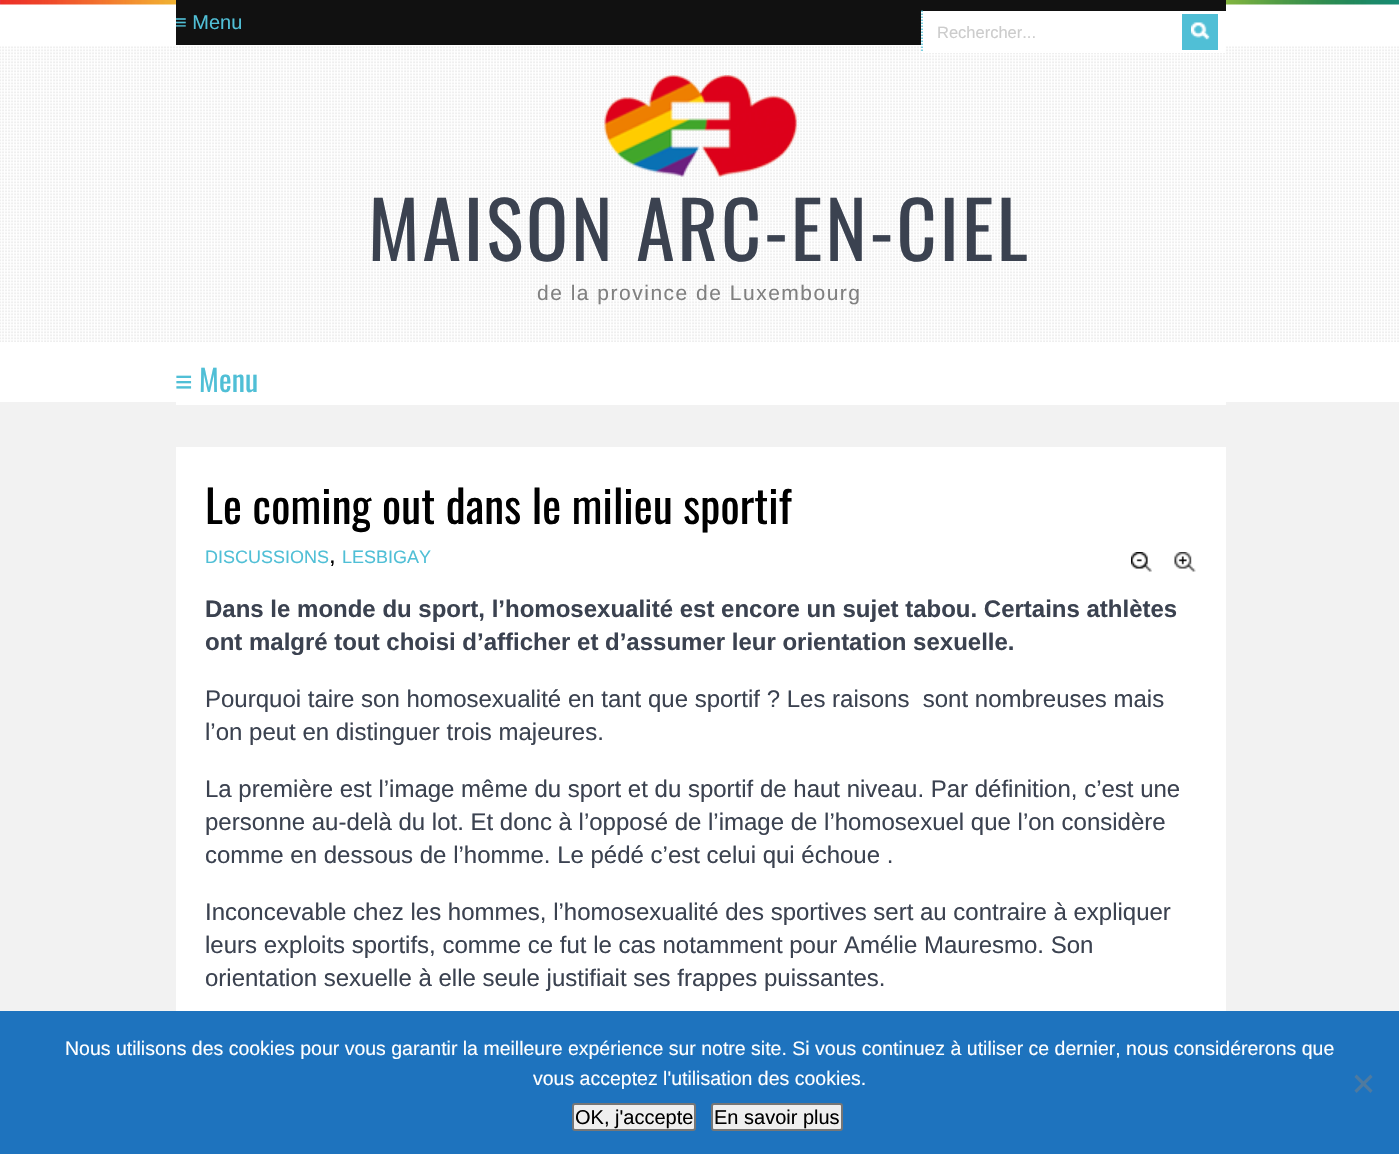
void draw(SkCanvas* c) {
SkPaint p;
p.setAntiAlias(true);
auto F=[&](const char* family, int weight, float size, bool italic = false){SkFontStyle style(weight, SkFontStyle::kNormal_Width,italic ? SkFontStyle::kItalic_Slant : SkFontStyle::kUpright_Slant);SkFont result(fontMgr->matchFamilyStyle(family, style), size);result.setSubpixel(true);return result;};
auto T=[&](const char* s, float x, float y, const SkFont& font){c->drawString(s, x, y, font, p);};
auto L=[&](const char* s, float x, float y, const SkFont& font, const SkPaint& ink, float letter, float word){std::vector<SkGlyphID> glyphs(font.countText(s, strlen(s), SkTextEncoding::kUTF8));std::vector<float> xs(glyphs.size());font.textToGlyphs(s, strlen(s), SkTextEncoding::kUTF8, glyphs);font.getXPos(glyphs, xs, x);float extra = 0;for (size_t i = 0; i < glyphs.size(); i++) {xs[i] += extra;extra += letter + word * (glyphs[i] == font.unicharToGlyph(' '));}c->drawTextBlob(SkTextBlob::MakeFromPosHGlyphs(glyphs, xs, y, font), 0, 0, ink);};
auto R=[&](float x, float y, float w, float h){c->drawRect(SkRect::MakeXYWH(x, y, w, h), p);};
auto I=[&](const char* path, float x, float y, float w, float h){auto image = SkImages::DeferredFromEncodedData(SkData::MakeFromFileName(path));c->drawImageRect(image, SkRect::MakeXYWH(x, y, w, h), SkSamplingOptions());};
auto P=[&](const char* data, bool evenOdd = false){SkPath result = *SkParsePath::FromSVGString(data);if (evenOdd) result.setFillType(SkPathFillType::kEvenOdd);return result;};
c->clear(0xfff2f2f2);
I("1.png",0,4,1399,42);
I("2.png",0,0,1399,5);
p.setColor(0xff111111);
R(176,0,1050,45);
c->save();
c->clipRect(SkRect::MakeXYWH(176,12,1050,23));
auto f1 = F("Liberation Sans",400,20);
p.setColor(0xff50bfd6);
T("≡ Menu",175,29,f1);
c->restore();
I("4.png",0,46,1399,296);
p.setColor(0xffffffff);
R(921,11,305,42);
p.setStroke(true);
p.setStrokeWidth(1.5);
p.setColor(0xff50bfd6);
p.setPathEffect(SkDashPathEffect::Make({{1.5f,1.5f}}, 0));
c->drawPath(P("M922 10.5v42"),p);
p.setPathEffect(nullptr);
auto f2 = F("Liberation Sans",400,16.5);
p.setStroke(false);
p.setColor(0xffcccccc);
T("Rechercher...",937,38,f2);
p.setColor(0xff50bfd6);
R(1182,14,36,36);
I("3.png",1191,22,19,18);
I("5.png",604,75,193,102);
auto f3 = F("Oswald",400,78);
p.setColor(0xff3b4250);
L("MAISON ARC-EN-CIEL",368,261,f3,p,3,0);
auto f4 = F("Liberation Sans",400,21);
p.setColor(0xff808080);
L("de la province de Luxembourg",537,300,f4,p,1.5,0);
p.setColor(0xffffffff);
R(0,342,1399,60);
R(176,402,1050,3);
auto f5 = F("Liberation Sans",400,30);
p.setColor(0xff50bfd6);
L("≡",175,392,f5,p,.15,0);
auto f6 = F("Oswald",400,30);
L("Menu",199,392,f6,p,.15,0);
p.setColor(0xffffffff);
R(176,447,1050,564);
auto f7 = F("Oswald",400,45);
p.setColor(0xff000000);
L("Le coming out dans le milieu sportif",205,524,f7,p,.15,0);
auto f8 = F("Liberation Sans",400,18);
p.setColor(0xff50bfd6);
T("DISCUSSIONS",205,563,f8);
auto f9 = F("Liberation Sans",400,24);
p.setColor(0xff000000);
T(",",329,563,f9);
p.setColor(0xff50bfd6);
T("LESBIGAY",342,563,f8);
I("6.png",1131,552,21,20);
I("7.png",1174,552,22,20);
auto f10 = F("Liberation Sans",700,24);
p.setColor(0xff3b4250);
T("Dans le monde du sport, l’homosexualité est encore un sujet tabou. Certains athlètes",205,617,f10);
T("ont malgré tout choisi d’afficher et d’assumer leur orientation sexuelle.",205,650,f10);
T("Pourquoi taire son homosexualité en tant que sportif ? Les raisons  sont nombreuses mais",205,707,f9);
T("l’on peut en distinguer trois majeures.",205,740,f9);
T("La première est l’image même du sport et du sportif de haut niveau. Par définition, c’est une",205,797,f9);
T("personne au-delà du lot. Et donc à l’opposé de l’image de l’homosexuel que l’on considère",205,830,f9);
T("comme en dessous de l’homme. Le pédé c’est celui qui échoue .",205,863,f9);
T("Inconcevable chez les hommes, l’homosexualité des sportives sert au contraire à expliquer",205,920,f9);
T("leurs exploits sportifs, comme ce fut le cas notamment pour Amélie Mauresmo. Son",205,953,f9);
T("orientation sexuelle à elle seule justifiait ses frappes puissantes.",205,986,f9);
p.setColor(0xff1e73be);
R(0,1011,1399,143);
auto f11 = F("Liberation Sans",400,19.5);
p.setColor(0xffffffff);
T("Nous utilisons des cookies pour vous garantir la meilleure expérience sur notre site. Si vous continuez à utiliser ce dernier, nous considérerons que",65,1055,f11);
T("vous acceptez l'utilisation des cookies.",533,1085,f11);
p.setColor(0xff4f7a9f);
c->drawPath(P("M1370.5 1074.5l2 2.5l-16 16l-2-2.5z"),p);
c->drawPath(P("M1354.5 1077l2-2.5l16 16l-2 2.5z"),p);
p.setColor(0xffefefef);
c->drawRoundRect(SkRect::MakeXYWH(573,1104,122,26),2,2,p);
p.setStroke(true);
p.setStrokeWidth(2);
p.setColor(0xff767676);
c->drawRoundRect(SkRect::MakeXYWH(573,1104,122,26),2,2,p);
p.setStroke(false);
p.setColor(0xff000000);
T("OK, j'accepte",575,1124,f1);
p.setColor(0xffefefef);
c->drawRoundRect(SkRect::MakeXYWH(712,1104,130,26),2,2,p);
p.setStroke(true);
p.setColor(0xff767676);
c->drawRoundRect(SkRect::MakeXYWH(712,1104,130,26),2,2,p);
p.setStroke(false);
p.setColor(0xff000000);
T("En savoir plus",714,1124,f1);
}
